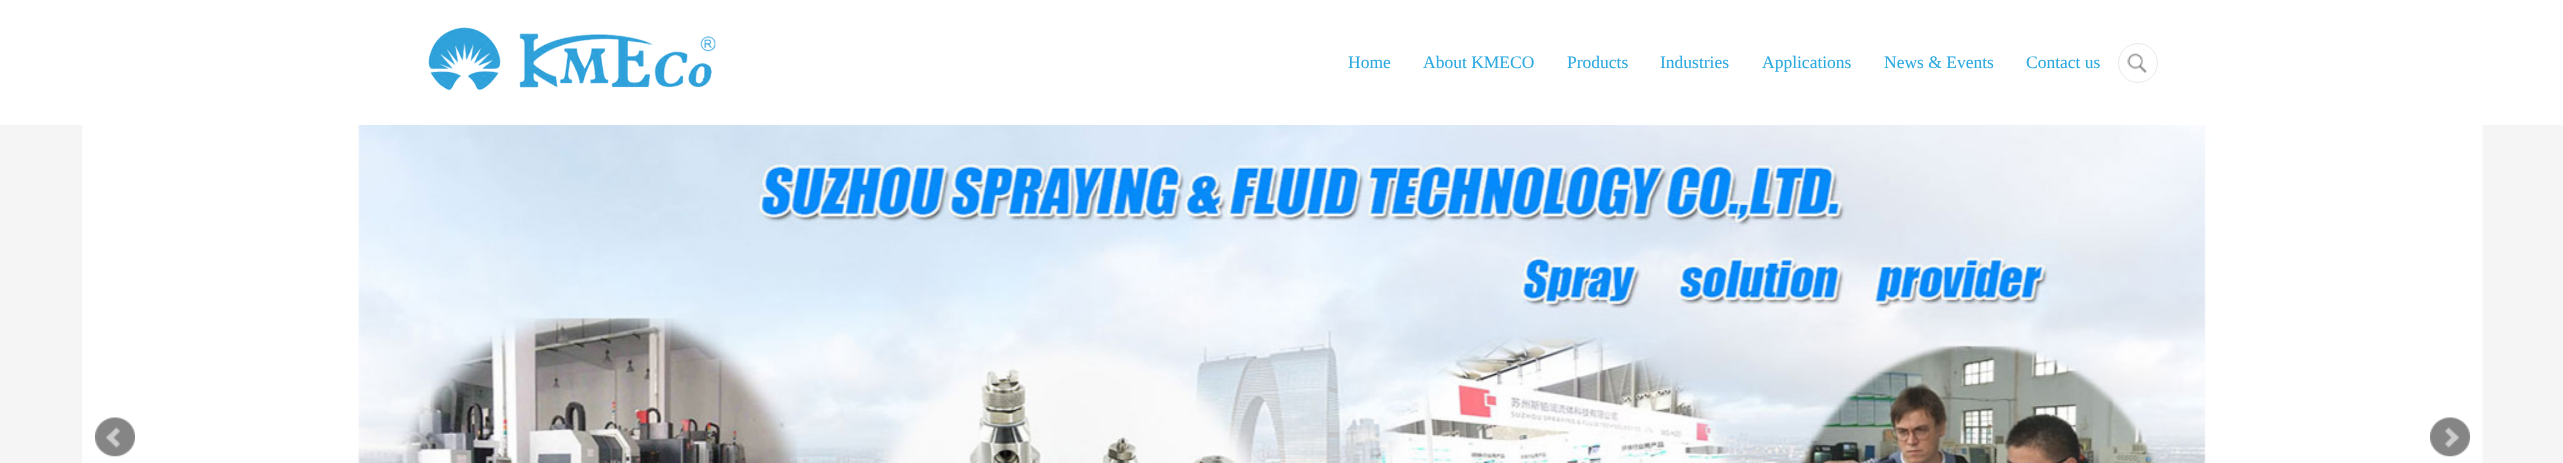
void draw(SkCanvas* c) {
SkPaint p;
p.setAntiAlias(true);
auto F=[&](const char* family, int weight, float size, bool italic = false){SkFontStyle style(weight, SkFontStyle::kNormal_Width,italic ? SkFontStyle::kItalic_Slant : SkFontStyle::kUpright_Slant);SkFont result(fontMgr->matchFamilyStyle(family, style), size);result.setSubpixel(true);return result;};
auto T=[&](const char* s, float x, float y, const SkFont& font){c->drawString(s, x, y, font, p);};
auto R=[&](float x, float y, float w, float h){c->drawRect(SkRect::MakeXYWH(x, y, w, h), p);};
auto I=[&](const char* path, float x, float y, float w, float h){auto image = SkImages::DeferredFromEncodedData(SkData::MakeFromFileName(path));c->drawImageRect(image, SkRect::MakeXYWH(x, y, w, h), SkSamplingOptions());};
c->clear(0xfff5f5f5);
p.setColor(0xffffffff);
R(0,0,2563,125);
I("1.png",428,27,288,64);
auto f1 = F("Liberation Serif",400,17.5);
p.setColor(0xff2ca9e1);
T("Home",1348,68,f1);
T("About KMECO",1423,68,f1);
T("Products",1567,68,f1);
T("Industries",1660,68,f1);
T("Applications",1762,68,f1);
T("News & Events",1884,68,f1);
T("Contact us",2026,68,f1);
p.setStroke(true);
p.setStrokeWidth(1);
p.setColor(0xffe9e9e9);
c->drawCircle(2138,63,19.5,p);
I("2.png",2127,53,20,20);
I("3.png",82,125,2401,338);
I("4.png",95,417,40,40);
I("5.png",2430,417,40,40);
}
